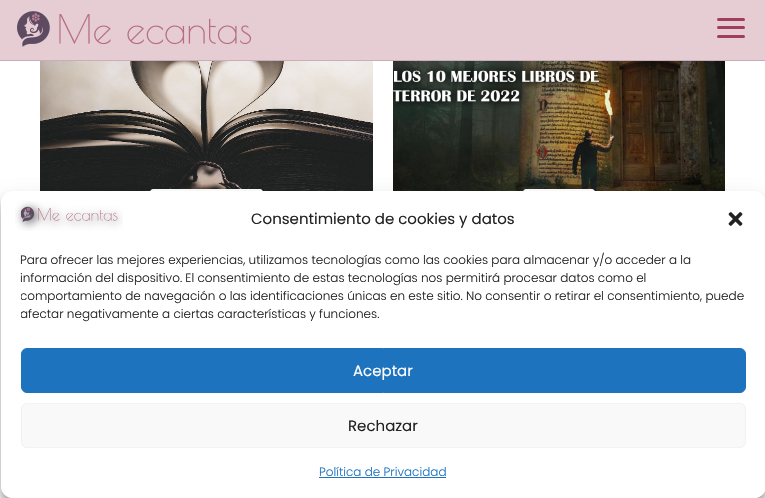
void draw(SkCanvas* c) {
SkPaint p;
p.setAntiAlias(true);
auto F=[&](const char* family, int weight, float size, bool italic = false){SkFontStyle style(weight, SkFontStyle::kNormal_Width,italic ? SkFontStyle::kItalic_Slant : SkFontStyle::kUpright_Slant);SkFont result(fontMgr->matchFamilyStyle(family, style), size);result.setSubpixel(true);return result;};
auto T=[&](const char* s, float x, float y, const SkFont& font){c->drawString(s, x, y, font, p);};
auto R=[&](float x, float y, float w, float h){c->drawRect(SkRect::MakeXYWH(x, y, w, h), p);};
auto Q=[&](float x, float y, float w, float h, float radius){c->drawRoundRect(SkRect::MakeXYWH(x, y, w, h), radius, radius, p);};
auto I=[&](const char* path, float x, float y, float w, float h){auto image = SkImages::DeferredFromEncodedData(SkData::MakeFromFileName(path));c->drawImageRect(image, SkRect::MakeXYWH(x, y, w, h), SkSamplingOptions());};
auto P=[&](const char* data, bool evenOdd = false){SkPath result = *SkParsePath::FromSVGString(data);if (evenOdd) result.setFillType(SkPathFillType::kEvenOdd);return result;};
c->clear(0xffffffff);
p.setColor(0xffe6ccd3);
R(0,0,765,60);
p.setColor(0xffc8adbb);
R(0,60,765,1);
I("1.png",17,11,235,36);
p.setColor(0xffa03e5c);
Q(717,18,28,3,1.5);
Q(717,26,28,3,1.5);
Q(717,35,28,3,1.5);
I("2.png",40,61,333,130);
p.setColor(0xffffffff);
c->drawPath(P("M153 189h107c1.5 0 3 1.5 3 3v24h-113v-24c0-1.5 1.5-3 3-3z"),p);
I("3.png",393,61,332,130);
c->drawPath(P("M526 189h66c1.5 0 3 1.5 3 3v24h-72v-24c0-1.5 1.5-3 3-3z"),p);
c->save();
c->clipPath(P("M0 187h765v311h-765zm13 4h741c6.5 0 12 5.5 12 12v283c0 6.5-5.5 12-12 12h-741c-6.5 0-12-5.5-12-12v-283c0-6.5 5.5-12 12-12z",true),true);
p.setColor(0x3b000000);
p.setMaskFilter(SkMaskFilter::MakeBlur(kNormal_SkBlurStyle, 3));
c->drawRoundRect(SkRect::MakeXYWH(1,197,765,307),12,12,p);
p.setMaskFilter(nullptr);
c->restore();
c->save();
c->clipPath(P("M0 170h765v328h-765zm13 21h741c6.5 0 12 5.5 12 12v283c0 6.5-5.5 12-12 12h-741c-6.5 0-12-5.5-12-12v-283c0-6.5 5.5-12 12-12z",true),true);
p.setColor(0x30000000);
p.setMaskFilter(SkMaskFilter::MakeBlur(kNormal_SkBlurStyle, 10));
c->drawRoundRect(SkRect::MakeXYWH(1,201,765,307),12,12,p);
p.setMaskFilter(nullptr);
c->restore();
p.setColor(0xffffffff);
Q(1,191,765,307,12);
I("4.png",15,201,108,30);
auto f1 = F("Poppins",400,15);
p.setColor(0xff222222);
T("Consentimiento de cookies y datos",251,224,f1);
I("5.png",728,212,15,14);
auto f2 = F("Poppins",300,12);
T("Para ofrecer las mejores experiencias, utilizamos tecnologías como las cookies para almacenar y/o acceder a la",20,264,f2);
T("información del dispositivo. El consentimiento de estas tecnologías nos permitirá procesar datos como el",20,282,f2);
c->save();
c->clipRect(SkRect::MakeXYWH(21,251,725,77));
T("comportamiento de navegación o las identificaciones únicas en este sitio. No consentir o retirar el consentimiento, puede",20,300,f2);
T("afectar negativamente a ciertas características y funciones.",20,318,f2);
c->restore();
p.setColor(0xff1e73be);
c->drawRoundRect(SkRect::MakeXYWH(21.5,348.5,724,44),5.5,5.5,p);
p.setStroke(true);
p.setStrokeWidth(1);
c->drawRoundRect(SkRect::MakeXYWH(21.5,348.5,724,44),5.5,5.5,p);
p.setStroke(false);
p.setColor(0xffffffff);
T("Aceptar",353,376,f1);
p.setColor(0xfff9f9f9);
c->drawRoundRect(SkRect::MakeXYWH(21.5,403.5,724,44),5.5,5.5,p);
p.setStroke(true);
p.setColor(0xfff2f2f2);
c->drawRoundRect(SkRect::MakeXYWH(21.5,403.5,724,44),5.5,5.5,p);
p.setStroke(false);
p.setColor(0xff222222);
T("Rechazar",348,431,f1);
p.setColor(0xff1e73be);
T("Política de Privacidad",319,476,f2);
R(319,477,127,1);
}
